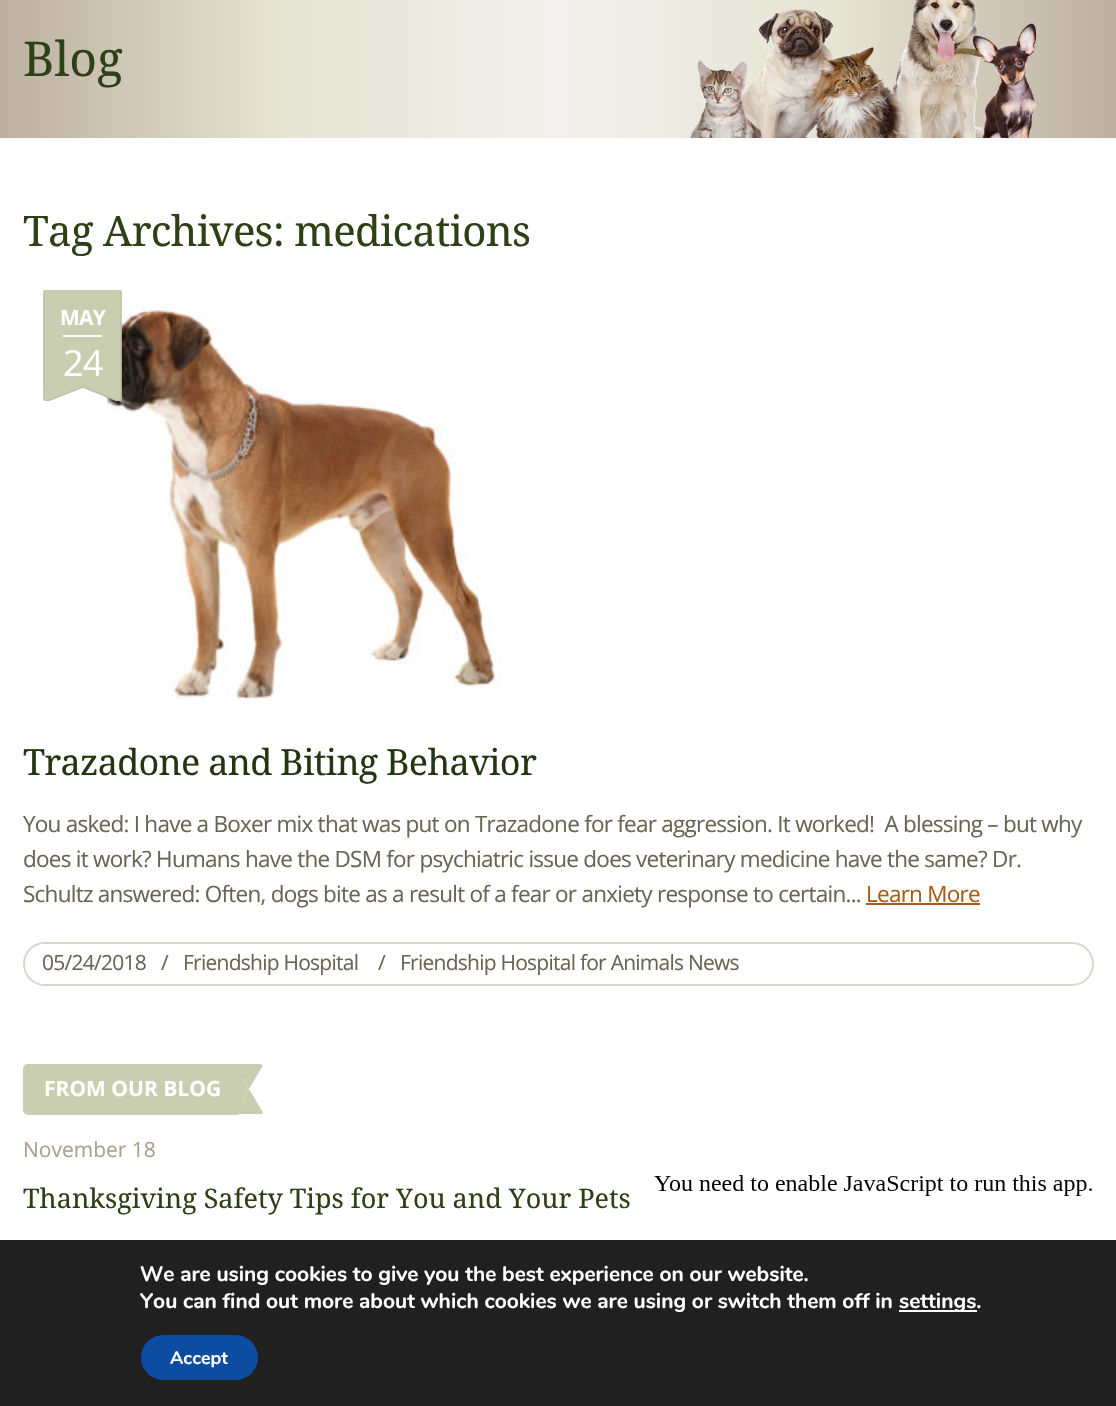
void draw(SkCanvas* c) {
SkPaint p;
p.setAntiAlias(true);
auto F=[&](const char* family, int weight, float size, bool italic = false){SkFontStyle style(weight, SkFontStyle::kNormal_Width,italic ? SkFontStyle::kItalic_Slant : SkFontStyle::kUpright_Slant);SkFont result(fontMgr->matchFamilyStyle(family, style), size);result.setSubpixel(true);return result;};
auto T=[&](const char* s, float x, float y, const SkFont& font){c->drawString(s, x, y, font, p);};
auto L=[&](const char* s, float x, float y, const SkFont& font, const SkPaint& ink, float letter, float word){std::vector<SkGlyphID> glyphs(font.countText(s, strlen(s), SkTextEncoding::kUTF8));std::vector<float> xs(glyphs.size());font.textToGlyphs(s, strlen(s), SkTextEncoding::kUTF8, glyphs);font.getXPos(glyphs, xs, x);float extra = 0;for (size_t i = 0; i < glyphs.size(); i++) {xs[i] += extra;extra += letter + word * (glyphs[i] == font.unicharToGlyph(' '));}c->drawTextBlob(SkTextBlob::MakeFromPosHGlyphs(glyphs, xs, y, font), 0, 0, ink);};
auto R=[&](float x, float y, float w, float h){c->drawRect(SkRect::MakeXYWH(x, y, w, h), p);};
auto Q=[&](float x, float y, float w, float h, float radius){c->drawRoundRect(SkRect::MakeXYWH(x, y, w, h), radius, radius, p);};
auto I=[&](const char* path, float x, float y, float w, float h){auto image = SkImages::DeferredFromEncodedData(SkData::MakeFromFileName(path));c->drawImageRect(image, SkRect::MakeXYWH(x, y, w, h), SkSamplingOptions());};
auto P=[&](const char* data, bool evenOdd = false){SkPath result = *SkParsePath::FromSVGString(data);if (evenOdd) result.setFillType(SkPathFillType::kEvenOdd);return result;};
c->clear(0xffffffff);
{
const SkColor colors[] = {0xffbcafa1,0xffe6e4d3,0xfff2f0ec,0xffe6e4d3,0xffbcafa1};
const float stops[] = {0,.25,.5,.75,1};
const SkPoint ends[] = {{0,58}, {1116,58}};
p.setShader(SkGradientShader::MakeLinear(ends, colors, stops, 5, SkTileMode::kClamp));
p.setAlpha(255);
}
R(0,0,1116,138);
I("1.png",690,0,347,138);
auto f1 = F("Noto Serif",400,48);
p.setShader(nullptr);
p.setColor(0xff2d4116);
T("Blog",23,76,f1);
auto f2 = F("Noto Serif",400,42);
L("Tag Archives: medications",23,246,f2,p,-.75,0);
I("2.png",83,304,419,397);
p.setColor(0xffcaceb1);
c->drawPath(P("M47 290h71c2 0 3 1 3 3v105c0 2-1 3-3 3l-35-14l-36 14c-2 0-3-1-3-3v-105c0-2 1-3 3-3z",true),p);
c->save();
c->clipRect(SkRect::MakeXYWH(41,290,84,111));
p.setStroke(true);
p.setStrokeWidth(1.7);
p.setColor(0xffbfc3a6);
c->drawPath(P("M47 289.5h71c2 0 3 1.5 3 3.5v105c0 1.5-1 3-3 3l-35-14l-36 14c-1.5 0-3-1.5-3-3.5v-104.5c0-2 1-3.5 3-3.5z"),p);
c->restore();
auto f3 = F("Open Sans",700,21);
p.setStroke(false);
p.setColor(0xffffffff);
L("MAY",60,325,f3,p,-.75,0);
auto f4 = F("Open Sans",400,36);
L("24",63,376,f4,p,-.75,0);
R(63,335,39,2);
auto f5 = F("Noto Serif",400,36);
p.setColor(0xff243511);
L("Trazadone and Biting Behavior",23,775,f5,p,-.75,0);
auto f6 = F("Open Sans",400,22.5);
p.setColor(0xff696454);
L("You asked: I have a Boxer mix that was put on Trazadone for fear aggression. It worked!  A blessing – but why",23,832,f6,p,-.75,0);
L("does it work? Humans have the DSM for psychiatric issue does veterinary medicine have the same? Dr.",23,867,f6,p,-.75,0);
L("Schultz answered: Often, dogs bite as a result of a fear or anxiety response to certain...",23,902,f6,p,-.75,0);
p.setColor(0xffad5b12);
L("Learn More",866,902,f6,p,-.75,0);
R(866,903,114,2);
p.setStroke(true);
p.setStrokeWidth(2);
p.setColor(0xffd9d6cb);
c->drawRoundRect(SkRect::MakeXYWH(24,943,1069,42),21,21,p);
auto f7 = F("Open Sans",400,21);
p.setStroke(false);
p.setColor(0xff696454);
L("05/24/2018",42,970,f7,p,-.75,0);
L("/",161,970,f7,p,-.75,0);
L("Friendship Hospital",183,970,f7,p,-.75,0);
L("/",378,970,f7,p,-.75,0);
L("Friendship Hospital for Animals News",400,970,f7,p,-.75,0);
p.setColor(0xffcaceb1);
Q(23,1064,219,51,5);
p.setColor(0xffffffff);
T("FROM OUR BLOG",44,1096,f3);
p.setColor(0xffcaceb1);
c->drawPath(P("M249 1089l-14.5-25h25.5c1 0 2 .5 3 1.5zm0 0l14 23.5c-1 1-2 1.5-3 1.5h-25.5z"),p);
c->drawPath(P("M234 1064l15 25l-15 25z"),p);
p.setColor(0xffa8a18d);
T("November 18",23,1157,f7);
auto f8 = F("Noto Serif",400,27);
p.setColor(0xff2d4116);
T("Thanksgiving Safety Tips for You and Your Pets",23,1208,f8);
I("3.png",654,1175,438,21);
p.setColor(0xff202020);
R(0,1240,1116,166);
auto f9 = F("Nunito",700,21);
p.setColor(0xffffffff);
T("We are using cookies to give you the best experience on our website.",140,1281,f9);
T("You can find out more about which cookies we are using or switch them off in",140,1308,f9);
R(899,1310,78,2);
T("settings.",899,1308,f9);
p.setColor(0xff0c4da2);
Q(141,1335,117,45,22.5);
auto f10 = F("Nunito",700,18);
p.setColor(0xffffffff);
T("Accept",170,1364,f10);
}
